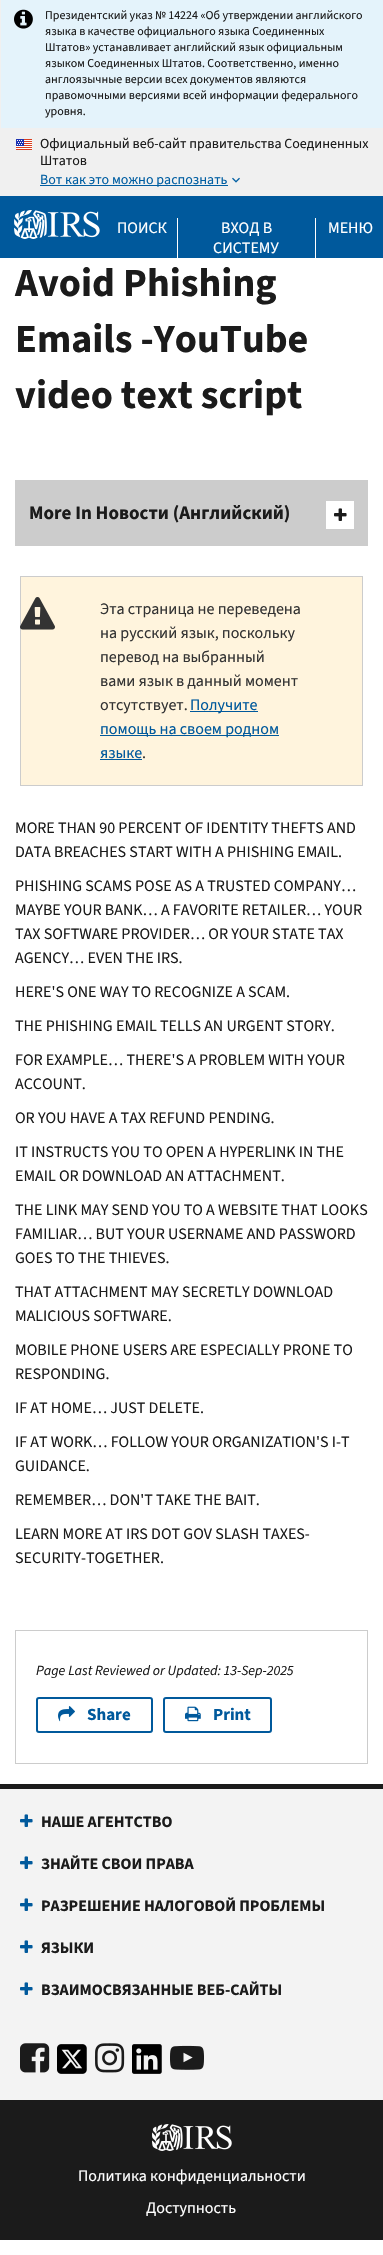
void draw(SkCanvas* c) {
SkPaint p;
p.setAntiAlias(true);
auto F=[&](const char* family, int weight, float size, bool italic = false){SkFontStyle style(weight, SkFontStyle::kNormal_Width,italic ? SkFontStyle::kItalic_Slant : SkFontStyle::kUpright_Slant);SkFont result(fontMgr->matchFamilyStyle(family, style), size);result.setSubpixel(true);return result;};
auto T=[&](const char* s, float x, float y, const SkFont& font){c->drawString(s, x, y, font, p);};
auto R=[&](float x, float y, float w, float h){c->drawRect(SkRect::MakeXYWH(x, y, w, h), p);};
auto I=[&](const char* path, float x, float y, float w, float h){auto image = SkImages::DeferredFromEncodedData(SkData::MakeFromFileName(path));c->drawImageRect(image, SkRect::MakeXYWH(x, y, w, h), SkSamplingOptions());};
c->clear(0xffffffff);
p.setColor(0xfff0f0f0);
R(0,0,383,196);
p.setColor(0xffe4f3fb);
R(1,0,382,128);
I("1.png",14,9,19,20);
auto f1 = F("Source Sans 3",400,12);
p.setColor(0xff1b1b1b);
T("Президентский указ № 14224 «Об утверждении английского",45,19,f1);
T("языка в качестве официального языка Соединенных",45,35,f1);
T("Штатов» устанавливает английский язык официальным",45,51,f1);
T("языком Соединенных Штатов. Соответственно, именно",45,67,f1);
T("англоязычные версии всех документов являются",45,83,f1);
T("правомочными версиями всей информации федерального",45,99,f1);
T("уровня.",45,115,f1);
I("2.png",16,139,16,11);
auto f2 = F("Source Sans 3",400,14);
T("Официальный веб-сайт правительства Соединенных",40,148,f2);
T("Штатов",40,165,f2);
p.setColor(0xff005ea2);
R(40,185,188,1);
T("Вот как это можно распознать",40,184,f2);
I("3.png",232,177,8,6);
p.setColor(0xff00599c);
R(0,196,383,62);
I("4.png",14,210,86,29);
p.setColor(0xffffffff);
R(177,218,1,40);
auto f3 = F("Source Sans 3",400,16);
T("ПОИСК",117,233,f3);
R(315,218,1,40);
T("ВХОД В",221,233,f3);
T("СИСТЕМУ",213,253,f3);
T("МЕНЮ",328,233,f3);
auto f4 = F("Source Sans 3",700,40);
p.setColor(0xff1b1b1b);
T("Avoid Phishing",15,296,f4);
T("Emails -YouTube",15,352,f4);
T("video text script",15,408,f4);
p.setColor(0xffcccccc);
R(15,480,353,66);
auto f5 = F("Source Sans 3",700,19);
p.setColor(0xff1b1b1b);
T("More In Новости (Английский)",29,519,f5);
p.setColor(0xffffffff);
R(326,501,28,28);
I("5.png",334,508,13,13);
p.setColor(0xfffff4dd);
c->drawRect(SkRect::MakeXYWH(20.5,576.5,342,209),p);
p.setStroke(true);
p.setStrokeWidth(1);
p.setColor(0xffcccccc);
c->drawRect(SkRect::MakeXYWH(20.5,576.5,342,209),p);
I("6.png",20,597,35,33);
p.setStroke(false);
p.setColor(0xff333333);
T("Эта страница не переведена",100,614,f3);
T("на русский язык, поскольку",100,638,f3);
T("перевод на выбранный",100,662,f3);
T("вами язык в данный момент",100,686,f3);
T("отсутствует.",100,710,f3);
p.setColor(0xff00599c);
R(190,711,68,1);
T("Получите",190,710,f3);
R(100,735,179,1);
T("помощь на своем родном",100,734,f3);
T("языке",100,758,f3);
R(100,759,42,1);
p.setColor(0xff333333);
T(".",142,758,f3);
p.setColor(0xff1b1b1b);
T("MORE THAN 90 PERCENT OF IDENTITY THEFTS AND",15,833,f3);
T("DATA BREACHES START WITH A PHISHING EMAIL.",15,857,f3);
T("PHISHING SCAMS POSE AS A TRUSTED COMPANY…",15,891,f3);
T("MAYBE YOUR BANK… A FAVORITE RETAILER… YOUR",15,915,f3);
T("TAX SOFTWARE PROVIDER… OR YOUR STATE TAX",15,939,f3);
T("AGENCY… EVEN THE IRS.",15,963,f3);
T("HERE'S ONE WAY TO RECOGNIZE A SCAM.",15,997,f3);
T("THE PHISHING EMAIL TELLS AN URGENT STORY.",15,1031,f3);
T("FOR EXAMPLE… THERE'S A PROBLEM WITH YOUR",15,1065,f3);
T("ACCOUNT.",15,1089,f3);
T("OR YOU HAVE A TAX REFUND PENDING.",15,1123,f3);
T("IT INSTRUCTS YOU TO OPEN A HYPERLINK IN THE",15,1157,f3);
T("EMAIL OR DOWNLOAD AN ATTACHMENT.",15,1181,f3);
T("THE LINK MAY SEND YOU TO A WEBSITE THAT LOOKS",15,1215,f3);
T("FAMILIAR… BUT YOUR USERNAME AND PASSWORD",15,1239,f3);
T("GOES TO THE THIEVES.",15,1263,f3);
T("THAT ATTACHMENT MAY SECRETLY DOWNLOAD",15,1297,f3);
T("MALICIOUS SOFTWARE.",15,1321,f3);
T("MOBILE PHONE USERS ARE ESPECIALLY PRONE TO",15,1355,f3);
T("RESPONDING.",15,1379,f3);
T("IF AT HOME… JUST DELETE.",15,1413,f3);
T("IF AT WORK… FOLLOW YOUR ORGANIZATION'S I-T",15,1447,f3);
T("GUIDANCE.",15,1471,f3);
T("REMEMBER… DON'T TAKE THE BAIT.",15,1505,f3);
T("LEARN MORE AT IRS DOT GOV SLASH TAXES-",15,1539,f3);
T("SECURITY-TOGETHER.",15,1563,f3);
p.setStroke(true);
p.setColor(0xffcccccc);
c->drawRect(SkRect::MakeXYWH(15.5,1630.5,352,133),p);
auto f6 = F("Source Sans 3",400,14,true);
p.setStroke(false);
p.setColor(0xff1b1b1b);
T("Page Last Reviewed or Updated: 13-Sep-2025",36,1675,f6);
p.setStroke(true);
p.setStrokeWidth(2);
p.setColor(0xff00599c);
c->drawRoundRect(SkRect::MakeXYWH(37,1698,115,34),2,2,p);
I("7.png",58,1706,17,16);
auto f7 = F("Source Sans 3",700,17);
p.setStroke(false);
T("Share",87,1720,f7);
p.setStroke(true);
c->drawRoundRect(SkRect::MakeXYWH(164,1698,107,34),2,2,p);
I("8.png",185,1706,16,16);
p.setStroke(false);
T("Print",213,1720,f7);
p.setColor(0xfff3f3f3);
R(0,1789,383,311);
p.setColor(0xff1b1b1b);
R(0,1784,383,5);
I("9.png",20,1814,13,13);
auto f8 = F("Source Sans 3",700,16);
T("НАШЕ АГЕНТСТВО",41,1827,f8);
I("9.png",20,1856,13,13);
T("ЗНАЙТЕ СВОИ ПРАВА",41,1869,f8);
I("9.png",20,1898,13,13);
T("РАЗРЕШЕНИЕ НАЛОГОВОЙ ПРОБЛЕМЫ",41,1911,f8);
I("9.png",20,1940,13,13);
T("ЯЗЫКИ",41,1953,f8);
I("9.png",20,1982,13,13);
T("ВЗАИМОСВЯЗАННЫЕ ВЕБ-САЙТЫ",41,1995,f8);
I("10.png",20,2043,30,30);
I("11.png",57,2044,30,30);
I("12.png",95,2043,30,30);
I("13.png",132,2044,30,30);
I("14.png",170,2045,34,25);
R(0,2100,383,140);
I("15.png",152,2124,80,27);
p.setColor(0xffffffff);
T("Политика конфиденциальности",78,2181,f3);
T("Доступность",146,2213,f3);
}
